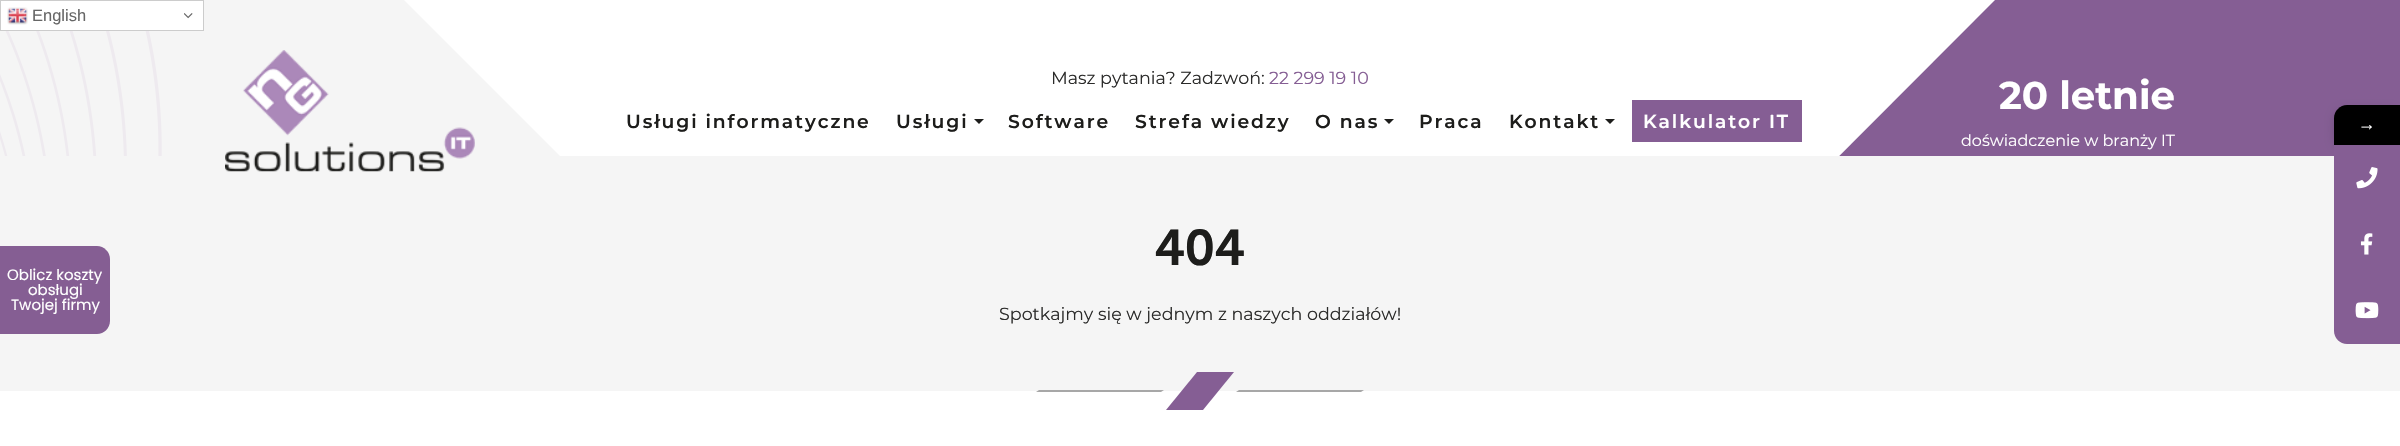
void draw(SkCanvas* c) {
SkPaint p;
p.setAntiAlias(true);
auto F=[&](const char* family, int weight, float size, bool italic = false){SkFontStyle style(weight, SkFontStyle::kNormal_Width,italic ? SkFontStyle::kItalic_Slant : SkFontStyle::kUpright_Slant);SkFont result(fontMgr->matchFamilyStyle(family, style), size);result.setSubpixel(true);return result;};
auto T=[&](const char* s, float x, float y, const SkFont& font){c->drawString(s, x, y, font, p);};
auto L=[&](const char* s, float x, float y, const SkFont& font, const SkPaint& ink, float letter, float word){std::vector<SkGlyphID> glyphs(font.countText(s, strlen(s), SkTextEncoding::kUTF8));std::vector<float> xs(glyphs.size());font.textToGlyphs(s, strlen(s), SkTextEncoding::kUTF8, glyphs);font.getXPos(glyphs, xs, x);float extra = 0;for (size_t i = 0; i < glyphs.size(); i++) {xs[i] += extra;extra += letter + word * (glyphs[i] == font.unicharToGlyph(' '));}c->drawTextBlob(SkTextBlob::MakeFromPosHGlyphs(glyphs, xs, y, font), 0, 0, ink);};
auto R=[&](float x, float y, float w, float h){c->drawRect(SkRect::MakeXYWH(x, y, w, h), p);};
auto I=[&](const char* path, float x, float y, float w, float h){auto image = SkImages::DeferredFromEncodedData(SkData::MakeFromFileName(path));c->drawImageRect(image, SkRect::MakeXYWH(x, y, w, h), SkSamplingOptions());};
auto P=[&](const char* data, bool evenOdd = false){SkPath result = *SkParsePath::FromSVGString(data);if (evenOdd) result.setFillType(SkPathFillType::kEvenOdd);return result;};
c->clear(0xffffffff);
I("1.png",0,0,560,156);
p.setColor(0xff855e94);
c->drawPath(P("M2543 0h-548l-651 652l47 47h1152z"),p);
p.setColor(0xffffffff);
c->drawRect(SkRect::MakeXYWH(.5,.5,203,30),p);
p.setStroke(true);
p.setStrokeWidth(1);
p.setColor(0xffcccccc);
c->drawRect(SkRect::MakeXYWH(.5,.5,203,30),p);
I("2.png",7,7,21,18);
auto f1 = F("Liberation Sans",400,16.5);
p.setStroke(false);
p.setColor(0xff666666);
T("English",32,21,f1);
I("3.png",184,13,9,6);
p.setColor(0xfff5f5f5);
R(0,156,2400,235);
I("4.png",225,50,250,122);
auto f2 = F("Montserrat",400,17.5);
p.setColor(0xff2b2b2a);
T("Masz pytania? Zadzwoń:",1051,84,f2);
p.setColor(0xff855e94);
T("22 299 19 10",1269,84,f2);
auto f3 = F("Montserrat",600,18.75);
p.setColor(0xff1d1d1b);
L("Usługi informatyczne",626,128,f3,p,1.9,0);
L("Usługi",896,128,f3,p,1.9,0);
c->drawPath(P("M974 119h10l-5 5z"),p);
L("Software",1008,128,f3,p,1.9,0);
L("Strefa wiedzy",1135,128,f3,p,1.9,0);
L("O nas",1315,128,f3,p,1.9,0);
c->drawPath(P("M1384 119h10l-5 5z"),p);
L("Praca",1419,128,f3,p,1.9,0);
L("Kontakt",1509,128,f3,p,1.9,0);
c->drawPath(P("M1605 119h10l-5 5z"),p);
p.setColor(0xff855e94);
R(1632,100,170,42);
p.setColor(0xffffffff);
L("Kalkulator IT",1643,128,f3,p,1.9,0);
auto f4 = F("Montserrat",700,38.75);
T("20 letnie",1999,109,f4);
auto f5 = F("Montserrat",400,16);
T("doświadczenie w branży IT",1961,146,f5);
p.setColor(0x29000000);
p.setMaskFilter(SkMaskFilter::MakeBlur(kNormal_SkBlurStyle, 4));
c->drawRoundRect(SkRect::MakeXYWH(2334,109,66,40),13,13,p);
p.setMaskFilter(nullptr);
p.setColor(0xff000000);
c->drawPath(P("M2347 105h53v40h-66v-27c0-7 6-13 13-13z"),p);
auto f6 = F("Liberation Serif",400,17.5);
p.setColor(0xffffffff);
T("→",2358,130,f6);
p.setColor(0xff855e94);
R(2334,145,66,133);
I("5.png",2356,167,22,22);
I("6.png",2360,233,13,22);
c->drawPath(P("M2334 278h66v66h-53c-7 0-13-6-13-13z"),p);
I("7.png",2355,302,24,17);
p.setColor(0xff855e93);
c->drawPath(P("M0 246h97c7 0 13 6 13 13v62c0 7-6 13-13 13h-97z"),p);
auto f7 = F("Poppins",400,15);
p.setColor(0xffffffff);
T("Oblicz koszty",7,280,f7);
T("obsługi",28,295,f7);
T("Twojej firmy",11,310,f7);
auto f8 = F("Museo",600,50);
p.setColor(0xff1d1d1b);
T("404",1155,265,f8);
p.setColor(0xff2b2b2a);
T("Spotkajmy się w jednym z naszych oddziałów!",999,320,f2);
p.setColor(0xff855e94);
c->drawPath(P("M1197 372h37l-31 38h-37z"),p);
p.setColor(0xffa7a7a7);
c->drawPath(P("M1039 390h125l-3 2h-125z"),p);
c->drawPath(P("M1239 390h125l-3 2h-125z"),p);
p.setColor(0xffffffff);
R(1549,391,851,55);
}
